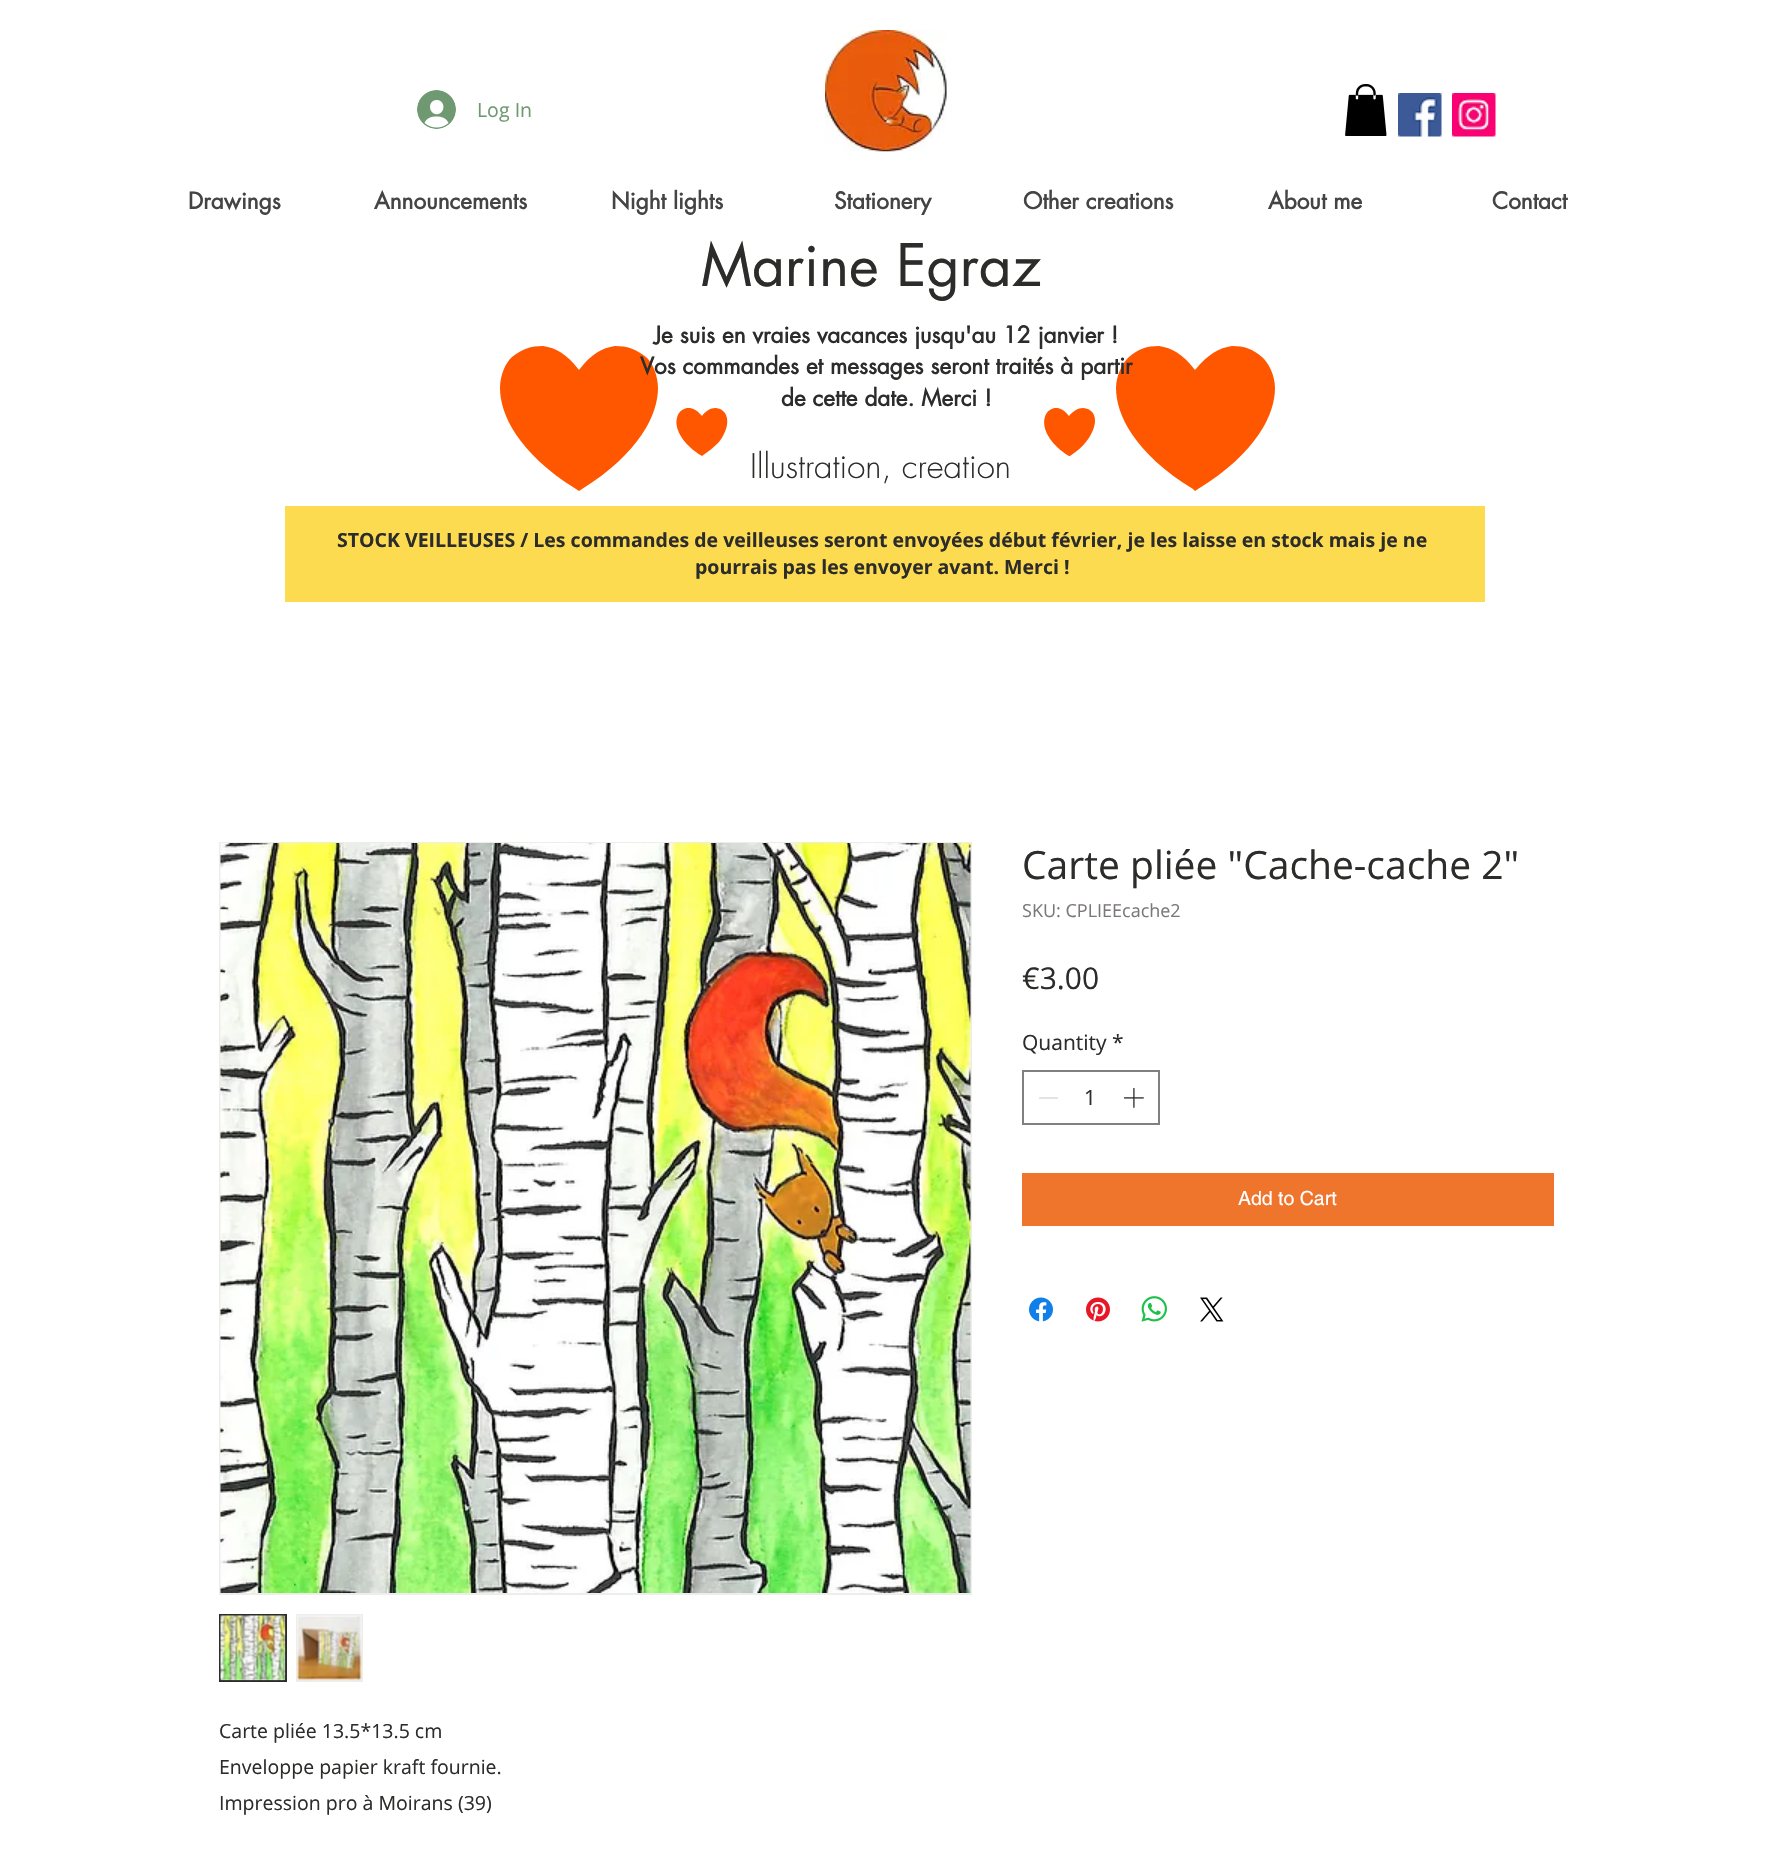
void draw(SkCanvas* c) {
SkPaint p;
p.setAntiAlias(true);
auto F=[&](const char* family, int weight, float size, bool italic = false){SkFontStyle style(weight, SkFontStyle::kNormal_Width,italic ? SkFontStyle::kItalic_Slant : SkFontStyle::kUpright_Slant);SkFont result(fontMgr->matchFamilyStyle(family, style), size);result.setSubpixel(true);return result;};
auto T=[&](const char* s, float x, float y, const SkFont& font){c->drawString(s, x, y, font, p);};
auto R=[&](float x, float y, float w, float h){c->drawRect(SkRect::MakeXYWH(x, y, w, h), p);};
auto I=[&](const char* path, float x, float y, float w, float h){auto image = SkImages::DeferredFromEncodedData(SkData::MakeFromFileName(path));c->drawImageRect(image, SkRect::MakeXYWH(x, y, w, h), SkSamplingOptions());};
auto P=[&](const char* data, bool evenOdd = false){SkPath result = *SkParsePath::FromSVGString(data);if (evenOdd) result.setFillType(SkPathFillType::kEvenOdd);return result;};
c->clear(0xffffffff);
I("1.png",417,90,39,39);
auto f1 = F("Open Sans",400,19.5);
p.setColor(0xff6f9971);
T("Log In",477,117,f1);
I("2.png",825,30,122,122);
I("3.png",1345,84,42,52);
I("4.png",1398,93,44,44);
I("5.png",1452,93,44,44);
auto f2 = F("futura",700,22.5);
p.setColor(0xff444444);
T("Drawings",188,209,f2);
T("Announcements",374,209,f2);
T("Night lights",611,209,f2);
T("Stationery",834,209,f2);
T("Other creations",1023,209,f2);
T("About me",1268,209,f2);
T("Contact",1492,209,f2);
auto f3 = F("futura",400,57);
p.setColor(0xff2c2c2b);
T("Marine Egraz",701,286,f3);
p.setColor(0xffff5700);
c->drawPath(P("M646 357c-10-8-19-11-31-11c-13 2-24 8-36 24c-12-16-23-22-36-24c-12 0-21 3-31 11c-6 5-12 18-12 31c0 26 18 65 76 101l3 2l3-2c58-36 76-75 76-101c0-13-6-26-12-31z"),p);
c->drawPath(P("M723 411c-7-6-16-2-21 5c-18-24-47 10 0 40c6-4 12-9 17-14c6-7 13-23 4-31z"),p);
c->drawPath(P("M1262 357c-9-8-18-11-30-11c-13 2-24 8-37 24c-12-16-23-22-36-24c-12 0-21 3-30 11c-6 5-13 18-13 31c0 26 18 65 77 101l2 2l3-2c59-36 77-75 77-101c0-13-7-26-13-31z"),p);
p.setColor(0xff2c2c2b);
T("Je suis en vraies vacances jusqu'au 12 janvier !",654,343,f2);
T("Vos commandes et messages seront traités à partir",640,374,f2);
T("de cette date. Merci !",781,406,f2);
p.setColor(0xffff5700);
c->drawPath(P("M1091 411c-8-6-16-2-22 5c-17-24-46 10 0 40h1c6-4 12-9 16-14c6-7 14-23 5-31z"),p);
auto f4 = F("futura",300,33);
p.setColor(0xff2c2c2b);
T("Illustration, creation",750,478,f4);
p.setColor(0xfffddb51);
R(285,506,1200,96);
auto f5 = F("Open Sans",700,19.5);
p.setColor(0xff2c2c2b);
T("STOCK VEILLEUSES / Les commandes de veilleuses seront envoyées début février, je les laisse en stock mais je ne",337,547,f5);
T("pourrais pas les envoyer avant. Merci !",695,574,f5);
auto f6 = F("Open Sans",400,39);
T("Carte pliée \"Cache-cache 2\"",1022,879,f6);
auto f7 = F("Open Sans",400,18);
p.setColor(0xff7c7878);
T("SKU: CPLIEEcache2",1022,917,f7);
auto f8 = F("Open Sans",400,30);
p.setColor(0xff2c2c2b);
T("€3.00",1022,989,f8);
auto f9 = F("Open Sans",400,21);
T("Quantity",1022,1050,f9);
T("*",1112,1050,f9);
p.setStroke(true);
p.setStrokeWidth(2);
p.setColor(0xff808080);
c->drawRect(SkRect::MakeXYWH(1023,1071,136,53),p);
p.setStroke(false);
p.setColor(0xffe3e3e3);
R(1039,1097,19,2);
p.setColor(0xff2c2c2b);
T("1",1084,1105,f9);
I("6.png",1124,1088,20,20);
p.setColor(0xffef742c);
R(1022,1173,532,53);
auto f10 = F("helvetica",400,19.5);
p.setColor(0xffffffff);
T("Add to Cart",1238,1205,f10);
I("7.png",1029,1297,24,25);
I("8.png",1086,1297,24,25);
I("9.png",1141,1296,26,26);
I("10.png",1200,1297,24,25);
p.setStroke(true);
p.setColor(0xffededec);
c->drawRect(SkRect::MakeXYWH(220,843,751,751),p);
I("11.png",220,843,751,750);
p.setStroke(false);
c->drawRect(SkRect::MakeXYWH(220,1615,66,66),p);
p.setStroke(true);
p.setColor(0xff2c2c2b);
c->drawRect(SkRect::MakeXYWH(220,1615,66,66),p);
I("12.png",220,1615,66,66);
p.setStroke(false);
p.setColor(0xffededec);
R(296,1614,67,68);
I("13.png",296,1615,66,66);
p.setColor(0xff2c2c2b);
T("Carte pliée 13.5*13.5 cm",219,1738,f1);
T("Enveloppe papier kraft fournie.",219,1774,f1);
T("Impression pro à Moirans (39)",219,1810,f1);
}
